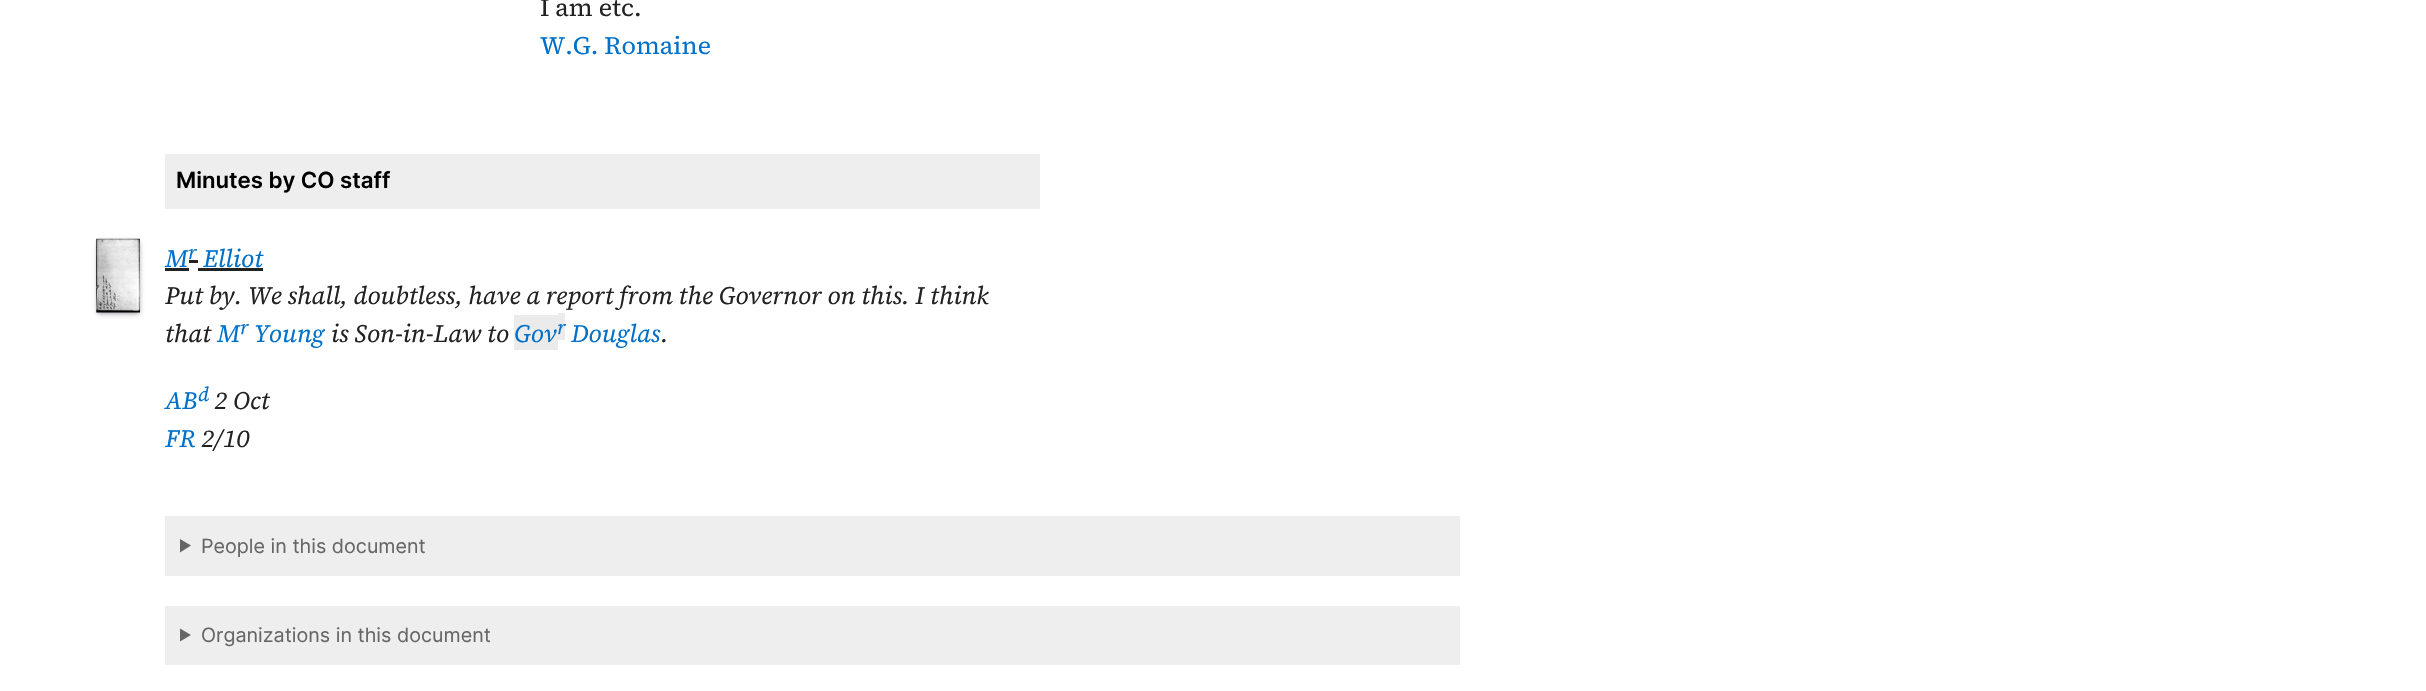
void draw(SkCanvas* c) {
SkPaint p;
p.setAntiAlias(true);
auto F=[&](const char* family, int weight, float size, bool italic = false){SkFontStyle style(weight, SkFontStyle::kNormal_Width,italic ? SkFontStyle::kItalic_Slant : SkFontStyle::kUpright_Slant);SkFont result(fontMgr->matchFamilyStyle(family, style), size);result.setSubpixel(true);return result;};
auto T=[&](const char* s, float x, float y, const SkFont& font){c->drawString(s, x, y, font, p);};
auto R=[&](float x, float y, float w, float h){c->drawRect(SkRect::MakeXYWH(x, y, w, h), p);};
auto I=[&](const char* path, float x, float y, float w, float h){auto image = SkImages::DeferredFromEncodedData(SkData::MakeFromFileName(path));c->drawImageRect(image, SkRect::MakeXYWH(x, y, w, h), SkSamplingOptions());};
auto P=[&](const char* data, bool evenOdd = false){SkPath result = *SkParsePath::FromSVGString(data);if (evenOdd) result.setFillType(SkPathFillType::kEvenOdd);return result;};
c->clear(0xffffffff);
auto f1 = F("Source Serif 4",400,25);
p.setColor(0xff222222);
T("I am etc.",540,16,f1);
p.setColor(0xff0070c9);
T("W.G. Romaine",540,54,f1);
p.setColor(0xffeeeeee);
R(165,154,875,55);
auto f2 = F("Inter",600,22.25);
p.setColor(0xff000000);
T("Minutes by CO staff",176,188,f2);
p.setColor(0x4d000000);
p.setMaskFilter(SkMaskFilter::MakeBlur(kNormal_SkBlurStyle, 2));
c->drawRect(SkRect::MakeXYWH(98,241,41,72),p);
p.setMaskFilter(nullptr);
p.setColor(0x4032325d);
p.setMaskFilter(SkMaskFilter::MakeBlur(kNormal_SkBlurStyle, 3));
c->drawRect(SkRect::MakeXYWH(98,243,41,71),p);
p.setMaskFilter(nullptr);
I("1.png",96,238,44,75);
auto f3 = F("Source Serif 4",400,25,true);
p.setColor(0xff0070c9);
T("M",165,267,f3);
p.setColor(0xff222222);
R(165,268,24,3);
R(189,260,9,3);
auto f4 = F("Source Serif 4",400,20,true);
p.setColor(0xff0070c9);
T("r",188,259,f4);
T("Elliot",203,267,f3);
p.setColor(0xff222222);
R(198,268,65,3);
T("Put by. We shall, doubtless, have a report from the Governor on this. I think",165,304,f3);
T("that",165,342,f3);
p.setColor(0xff0070c9);
T("M",217,342,f3);
T("r",240,334,f4);
T("Young",254,342,f3);
p.setColor(0xff222222);
T("is Son-in-Law to",331,342,f3);
p.setColor(0xffebebeb);
R(514,315,44,35);
p.setColor(0xff0070c9);
T("Gov",514,342,f3);
p.setColor(0xffebebeb);
R(558,313,7,27);
p.setColor(0xff0070c9);
T("r",557,334,f4);
T("Douglas",571,342,f3);
p.setColor(0xff222222);
T(".",661,342,f3);
p.setColor(0xff0070c9);
T("AB",165,409,f3);
T("d",198,401,f4);
p.setColor(0xff222222);
T("2 Oct",214,409,f3);
p.setColor(0xff0070c9);
T("FR",165,447,f3);
p.setColor(0xff222222);
T("2/10",201,447,f3);
p.setColor(0xffeeeeee);
R(165,516,1295,60);
p.setColor(0xff666666);
c->drawPath(P("M180 539l11 6.5l-11 7z"),p);
auto f5 = F("Inter",400,19.75);
T("People in this document",201,553,f5);
p.setColor(0xffeeeeee);
R(165,606,1295,59);
p.setColor(0xff666666);
c->drawPath(P("M180 628.5l11 6.5l-11 6.5z"),p);
T("Organizations in this document",201,642,f5);
}
